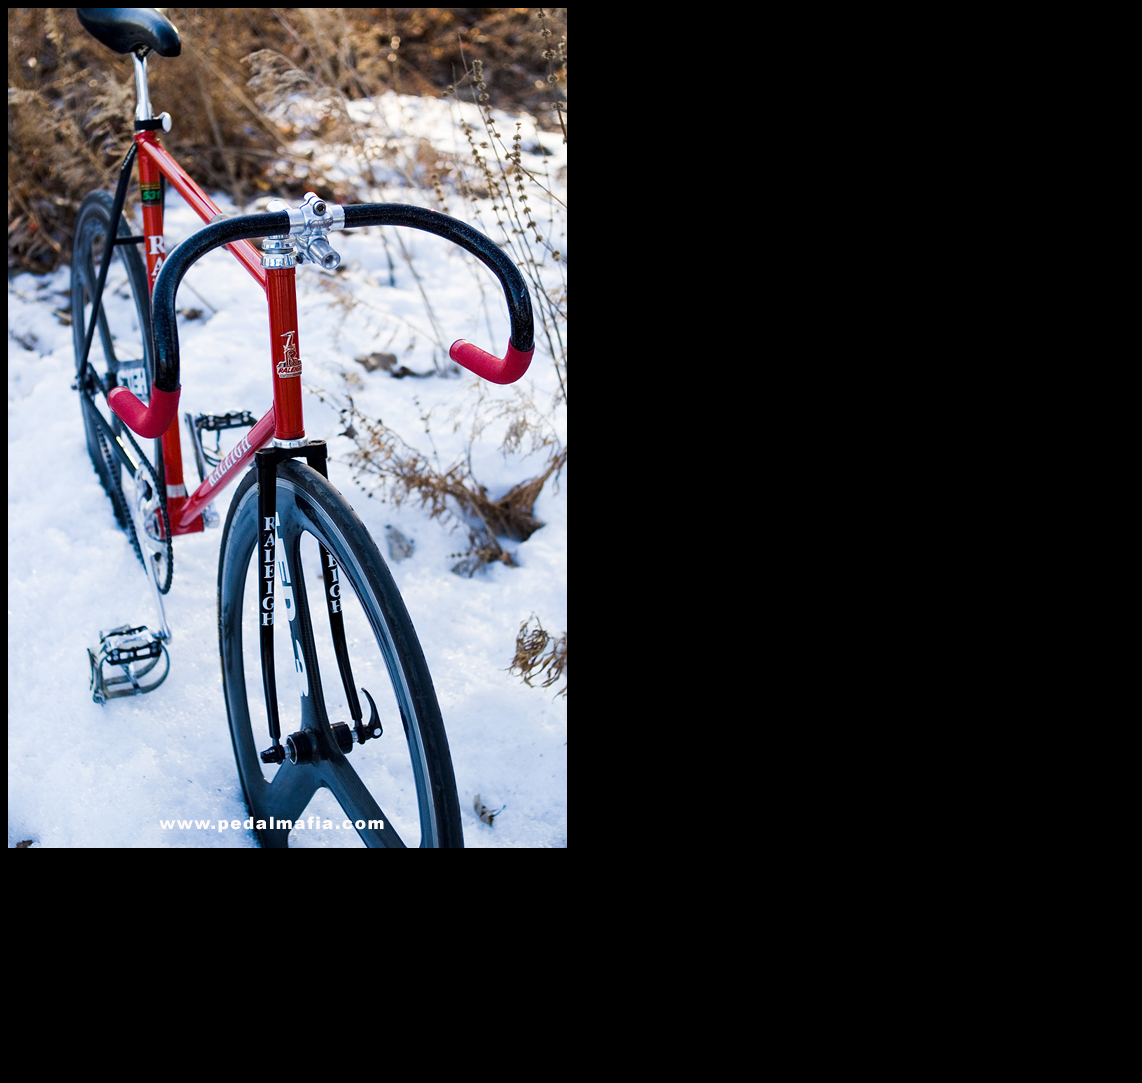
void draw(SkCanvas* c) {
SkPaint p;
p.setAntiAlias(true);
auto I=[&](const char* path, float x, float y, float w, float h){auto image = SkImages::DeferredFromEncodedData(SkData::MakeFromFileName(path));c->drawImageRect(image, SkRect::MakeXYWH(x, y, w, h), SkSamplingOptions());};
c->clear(0xff000000);
I("1.png",8,8,559,840);
}
